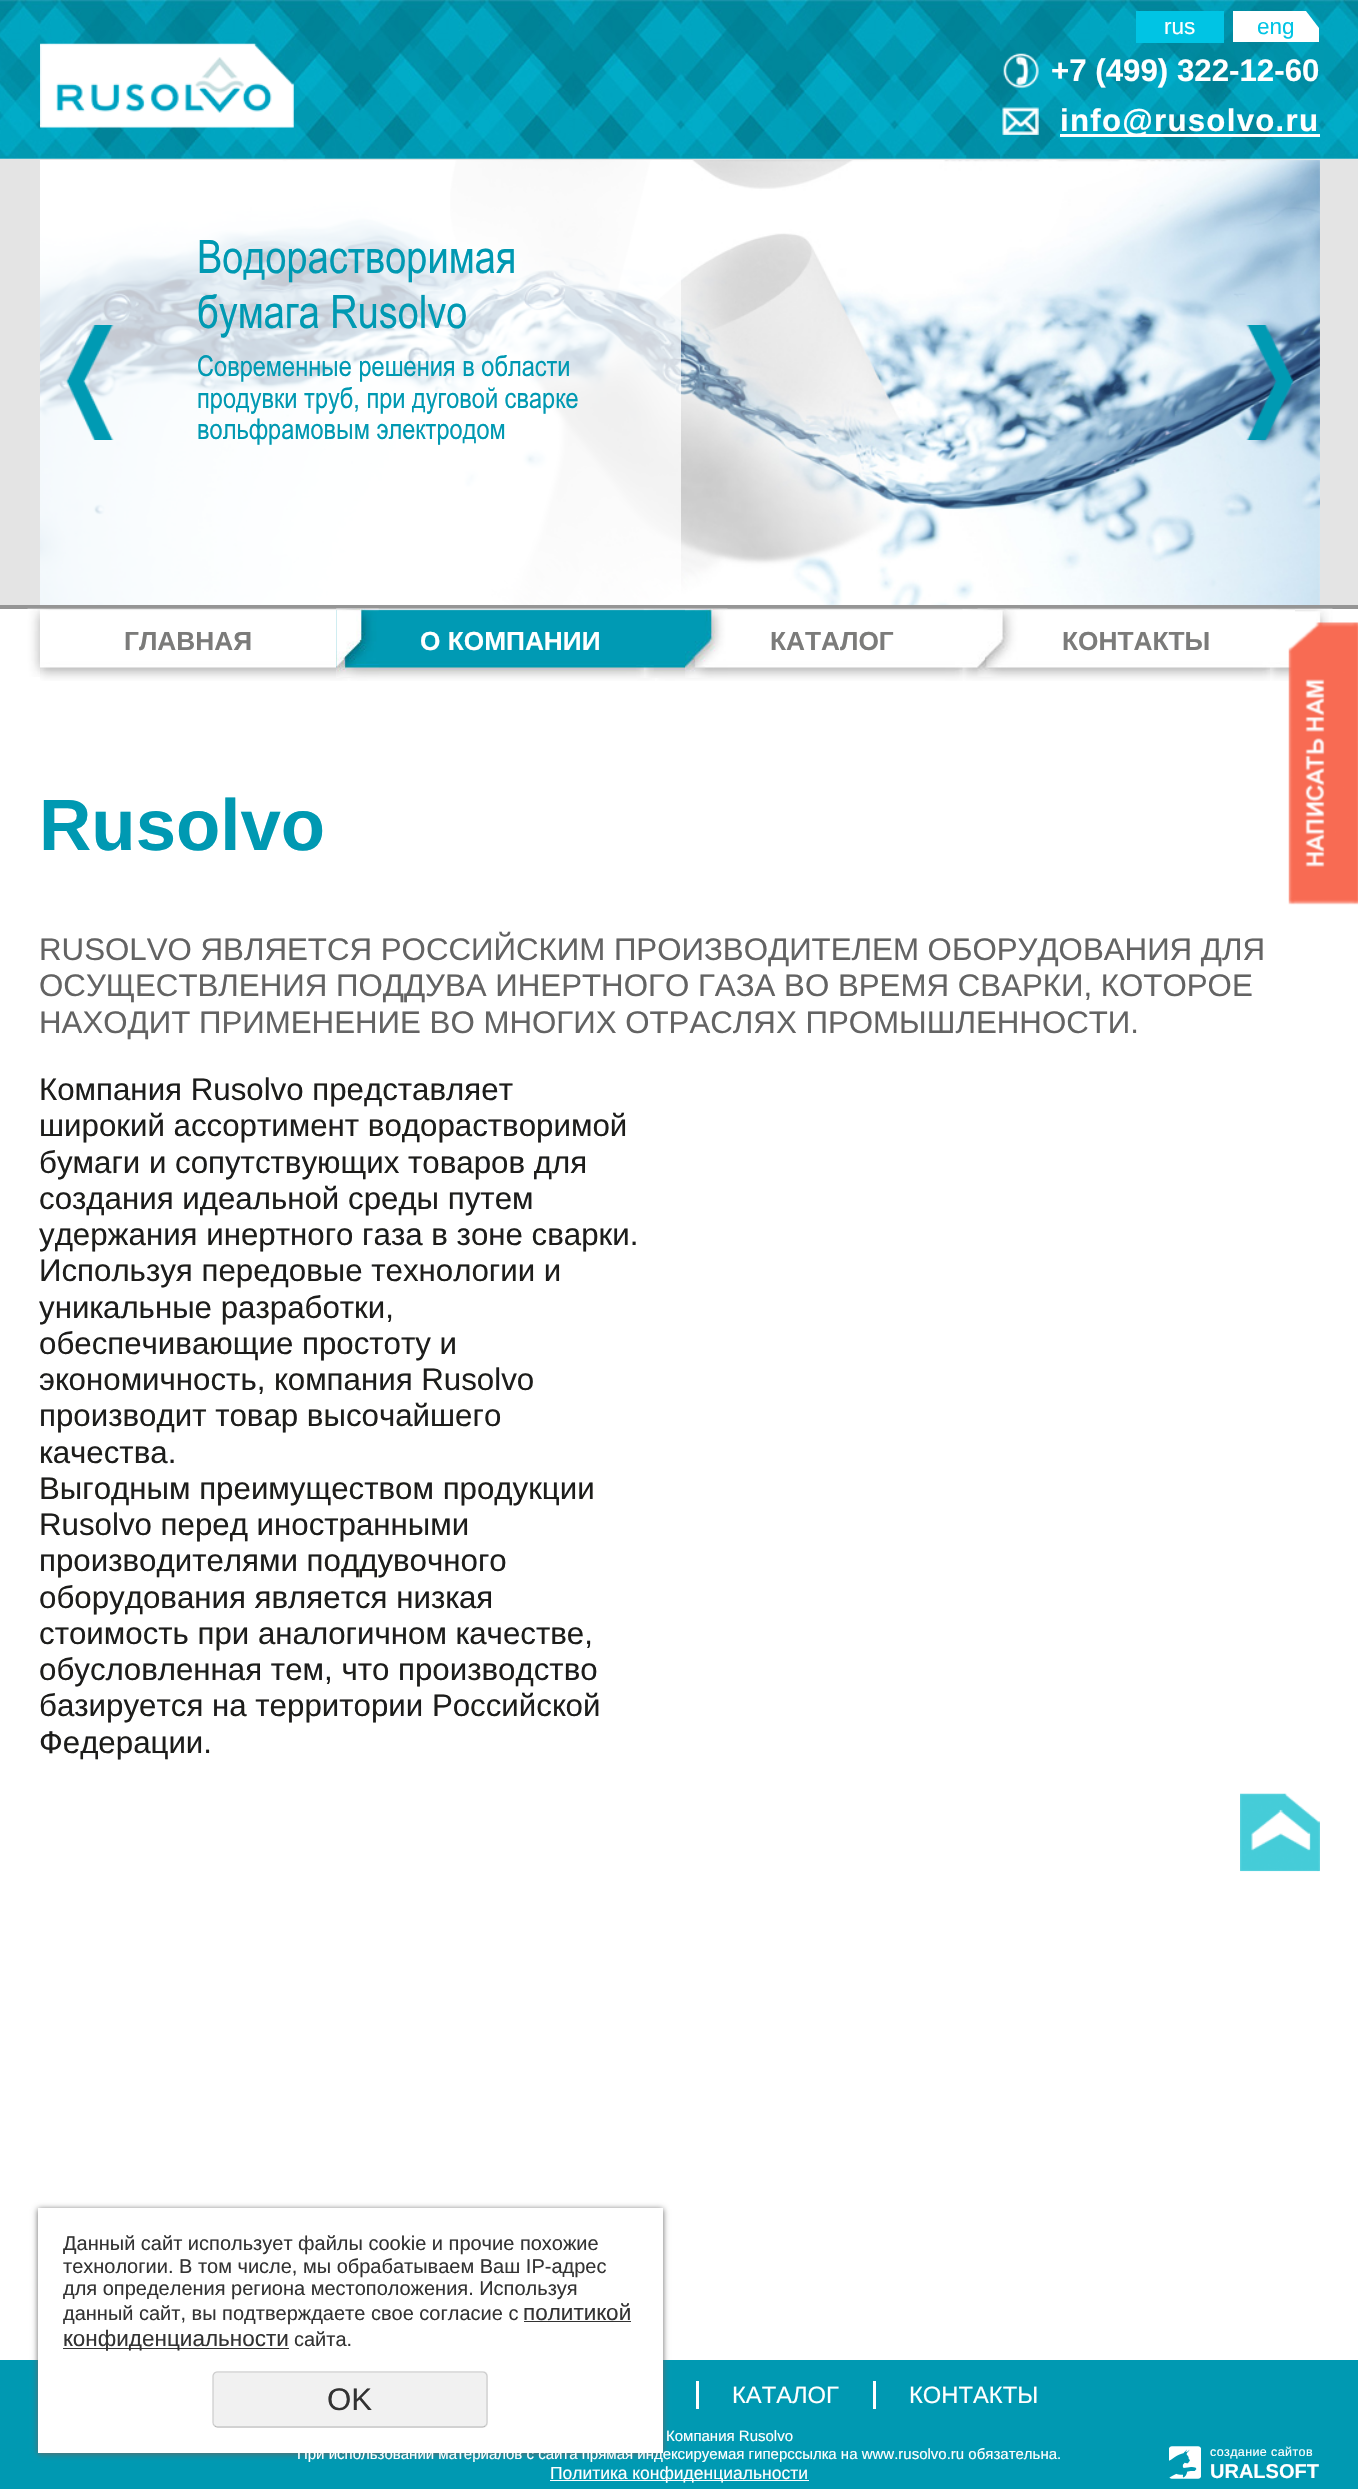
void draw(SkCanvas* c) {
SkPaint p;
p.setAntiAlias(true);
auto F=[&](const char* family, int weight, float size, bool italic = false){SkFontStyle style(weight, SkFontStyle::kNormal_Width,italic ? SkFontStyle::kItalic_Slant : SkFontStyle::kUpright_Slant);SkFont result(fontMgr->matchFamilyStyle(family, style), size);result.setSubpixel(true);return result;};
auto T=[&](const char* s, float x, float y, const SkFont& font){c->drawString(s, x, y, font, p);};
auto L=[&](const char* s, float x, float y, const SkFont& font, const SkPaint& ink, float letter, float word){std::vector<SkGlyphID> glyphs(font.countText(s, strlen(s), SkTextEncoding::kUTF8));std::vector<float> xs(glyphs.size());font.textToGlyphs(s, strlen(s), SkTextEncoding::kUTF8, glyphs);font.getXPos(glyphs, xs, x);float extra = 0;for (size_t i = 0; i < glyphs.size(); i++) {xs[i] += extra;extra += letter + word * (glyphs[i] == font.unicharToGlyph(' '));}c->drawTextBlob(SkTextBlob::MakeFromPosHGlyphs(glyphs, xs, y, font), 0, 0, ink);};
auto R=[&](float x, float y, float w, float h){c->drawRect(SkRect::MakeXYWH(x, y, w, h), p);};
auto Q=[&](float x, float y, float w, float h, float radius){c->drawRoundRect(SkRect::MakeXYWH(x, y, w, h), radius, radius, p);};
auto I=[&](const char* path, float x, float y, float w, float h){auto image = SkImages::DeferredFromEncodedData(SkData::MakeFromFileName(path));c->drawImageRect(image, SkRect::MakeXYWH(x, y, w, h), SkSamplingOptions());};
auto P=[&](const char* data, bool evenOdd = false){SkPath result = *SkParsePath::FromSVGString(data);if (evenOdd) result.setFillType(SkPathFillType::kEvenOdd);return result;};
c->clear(0xffffffff);
I("1.png",0,0,1358,159);
p.setColor(0xff00c4e4);
R(1136,11,88,32);
auto f1 = F("Liberation Sans",400,22.5);
p.setColor(0xffffffff);
T("rus",1164,34,f1);
c->drawPath(P("M1306 11l13 17v14h-86v-31z"),p);
p.setColor(0xff00c4e4);
T("eng",1257,34,f1);
I("2.png",40,43,254,85);
I("3.png",1003,53,36,36);
auto f2 = F("Liberation Sans",700,31.25);
p.setColor(0xffffffff);
T("+7 (499) 322-12-60",1051,81,f2);
I("4.png",1002,107,37,28);
R(1060,134,260,3);
L("info@rusolvo.ru",1060,131,f2,p,1.25,0);
p.setColor(0xffe4e4e4);
R(0,159,1358,446);
p.setColor(0xff959595);
R(0,605,1358,4);
I("6.png",40,160,1280,445);
p.setColor(0xbfffffff);
R(40,160,641,445);
I("5.png",66,325,48,115);
auto f3 = F("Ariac",400,46.25);
p.setColor(0xff0099b2);
T("Водорастворимая",197,273,f3);
T("бумага Rusolvo",197,328,f3);
auto f4 = F("Ariac",400,28.75);
T("Современные решения в области",197,376,f4);
T("продувки труб, при дуговой сварке",197,408,f4);
T("вольфрамовым электродом",197,439,f4);
I("7.png",1246,325,48,115);
I("8.png",40,608,1255,73);
I("9.png",27,608,13,69);
auto f5 = F("Liberation Sans",700,26.25);
p.setColor(0xff7b7b7a);
T("ГЛАВНАЯ",124,650,f5);
I("11.png",336,608,349,70);
I("10.png",336,608,43,69);
p.setColor(0xffffffff);
T("О КОМПАНИИ",420,650,f5);
I("12.png",685,608,43,70);
p.setColor(0xff7b7b7a);
T("КАТАЛОГ",770,650,f5);
I("13.png",977,608,43,69);
T("КОНТАКТЫ",1062,650,f5);
I("14.png",1295,608,38,40);
auto f6 = F("Liberation Sans",700,72.5);
p.setColor(0xff0099b2);
T("Rusolvo",39,850,f6);
auto f7 = F("Liberation Sans",400,31.25);
p.setColor(0xff636363);
T("RUSOLVO ЯВЛЯЕТСЯ РОССИЙСКИМ ПРОИЗВОДИТЕЛЕМ ОБОРУДОВАНИЯ ДЛЯ",39,960,f7);
T("ОСУЩЕСТВЛЕНИЯ ПОДДУВА ИНЕРТНОГО ГАЗА ВО ВРЕМЯ СВАРКИ, КОТОРОЕ",39,996,f7);
T("НАХОДИТ ПРИМЕНЕНИЕ ВО МНОГИХ ОТРАСЛЯХ ПРОМЫШЛЕННОСТИ.",39,1033,f7);
p.setColor(0xff1d1d1b);
T("Компания Rusolvo представляет",39,1100,f7);
T("широкий ассортимент водорастворимой",39,1136,f7);
T("бумаги и сопутствующих товаров для",39,1173,f7);
T("создания идеальной среды путем",39,1209,f7);
T("удержания инертного газа в зоне сварки.",39,1245,f7);
T("Используя передовые технологии и",39,1281,f7);
T("уникальные разработки,",39,1318,f7);
T("обеспечивающие простоту и",39,1354,f7);
T("экономичность, компания Rusolvo",39,1390,f7);
T("производит товар высочайшего",39,1426,f7);
T("качества.",39,1463,f7);
T("Выгодным преимуществом продукции",39,1499,f7);
T("Rusolvo перед иностранными",39,1535,f7);
T("производителями поддувочного",39,1571,f7);
T("оборудования является низкая",39,1608,f7);
T("стоимость при аналогичном качестве,",39,1644,f7);
T("обусловленная тем, что производство",39,1680,f7);
T("базируется на территории Российской",39,1716,f7);
T("Федерации.",39,1753,f7);
I("15.png",1240,1793,80,79);
I("16.png",1288,622,70,283);
p.setColor(0xff0099b2);
R(0,2360,1358,129);
p.setColor(0xff666666);
p.setMaskFilter(SkMaskFilter::MakeBlur(kNormal_SkBlurStyle, 3));
c->drawRect(SkRect::MakeXYWH(38,2209,625,245),p);
p.setMaskFilter(nullptr);
p.setColor(0xffffffff);
R(38,2208,625,245);
auto f8 = F("Liberation Sans",400,20);
p.setColor(0xff333333);
T("Данный сайт использует файлы cookie и прочие похожие",63,2250,f8);
T("технологии. В том числе, мы обрабатываем Ваш IP-адрес",63,2273,f8);
T("для определения региона местоположения. Используя",63,2295,f8);
T("данный сайт, вы подтверждаете свое согласие с",63,2320,f8);
T("политикой",523,2320,f1);
R(524,2321,107,1);
R(63,2348,226,1);
T("конфиденциальности",63,2346,f1);
T("сайта.",294,2346,f8);
p.setColor(0xfff1f1f1);
Q(213,2371,275,57,5);
p.setStroke(true);
p.setStrokeWidth(1.2);
p.setColor(0xffb3b3b3);
c->drawPath(P("M485.5 2425.5c-.5 1-2 1.5-3 1.5h-265c-1 0-2.5-.5-3-1.5"),p);
p.setColor(0xffcccccc);
c->drawPath(P("M214.5 2425.5c-1-.5-1.5-2-1.5-3v-46.5c0-1 .5-2 1.5-3c.5-.5 2-1 3-1h265c1 0 2.5 .5 3 1c1 1 1.5 2 1.5 3v46.5c0 1-.5 2.5-1.5 3"),p);
p.setStroke(false);
p.setColor(0xff333333);
T("OK",327,2410,f7);
p.setColor(0xffffffff);
R(696,2381,3,28);
R(873,2381,3,28);
auto f9 = F("Liberation Sans",400,23.75);
T("КАТАЛОГ",732,2403,f9);
T("КОНТАКТЫ",909,2403,f9);
auto f10 = F("Liberation Sans",400,15);
T("Компания Rusolvo",666,2441,f10);
T("При использовании материалов с сайта прямая индексируемая гиперссылка на www.rusolvo.ru обязательна.",297,2459,f10);
I("17.png",1169,2446,32,33);
auto f11 = F("Liberation Sans",400,12.5);
L("создание сайтов",1210,2456,f11,p,.4,0);
auto f12 = F("Liberation Sans",700,20);
T("URALSOFT",1210,2478,f12);
R(550,2480,259,1);
auto f13 = F("Liberation Sans",400,17.5);
T("Политика конфиденциальности",550,2479,f13);
}
